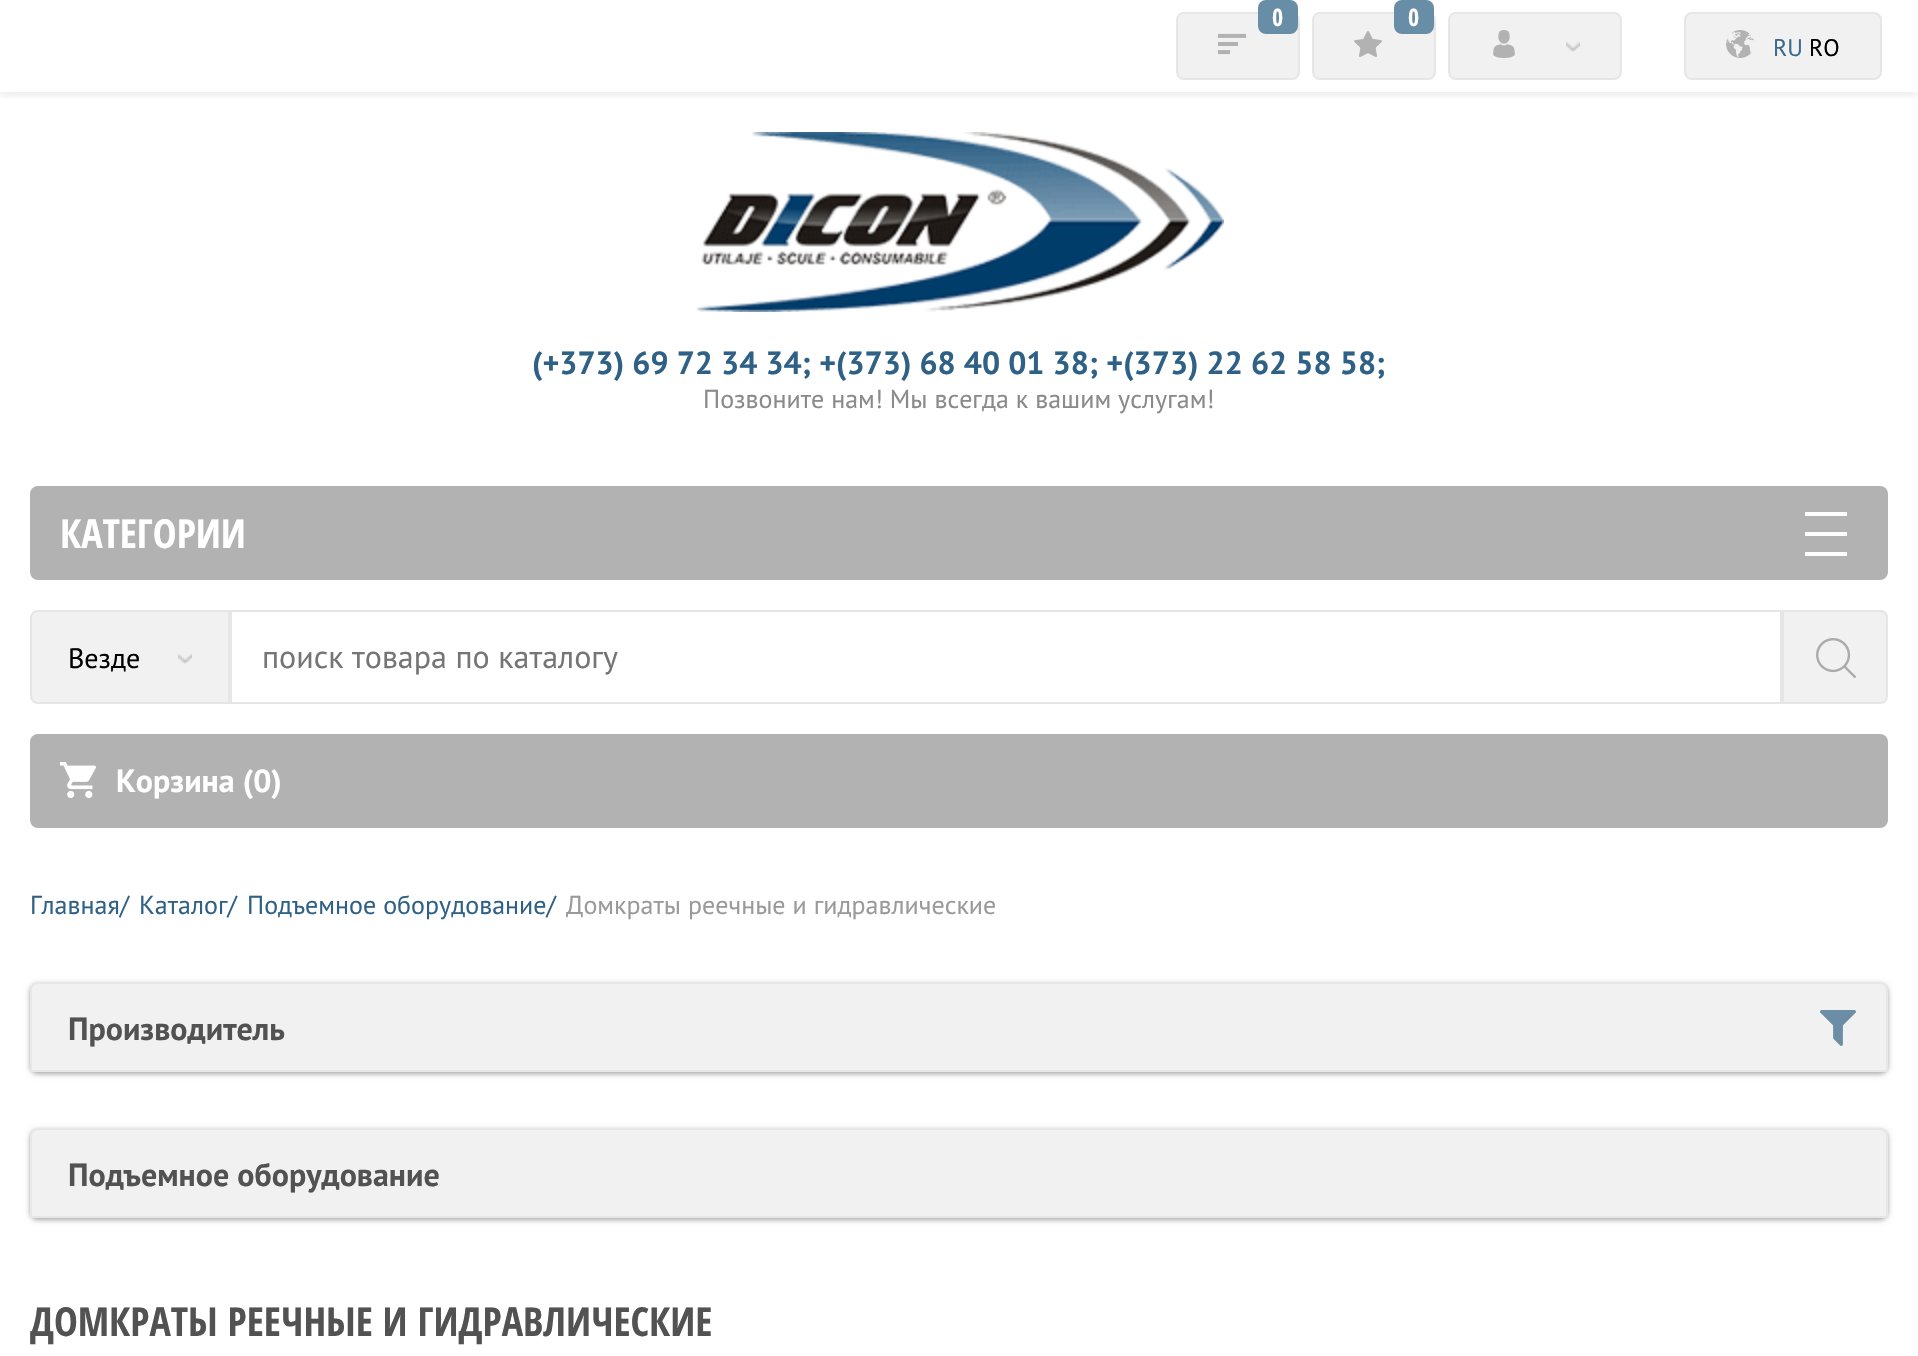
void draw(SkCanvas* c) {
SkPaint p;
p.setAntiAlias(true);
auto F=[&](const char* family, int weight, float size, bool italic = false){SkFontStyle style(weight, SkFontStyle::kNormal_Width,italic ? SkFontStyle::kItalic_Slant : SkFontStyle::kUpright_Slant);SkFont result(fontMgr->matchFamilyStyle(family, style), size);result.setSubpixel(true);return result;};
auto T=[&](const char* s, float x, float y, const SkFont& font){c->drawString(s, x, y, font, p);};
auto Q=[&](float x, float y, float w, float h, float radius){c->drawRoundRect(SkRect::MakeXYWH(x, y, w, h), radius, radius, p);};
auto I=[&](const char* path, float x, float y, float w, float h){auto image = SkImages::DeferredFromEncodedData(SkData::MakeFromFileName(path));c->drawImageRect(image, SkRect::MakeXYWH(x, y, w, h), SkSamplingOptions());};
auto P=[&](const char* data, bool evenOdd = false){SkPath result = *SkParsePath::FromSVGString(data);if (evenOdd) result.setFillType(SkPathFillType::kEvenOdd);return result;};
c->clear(0xffffffff);
c->save();
c->clipRect(SkRect::MakeXYWH(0,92,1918,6));
p.setColor(0x1a000000);
p.setMaskFilter(SkMaskFilter::MakeBlur(kNormal_SkBlurStyle, 5));
c->drawRect(SkRect::MakeXYWH(0,2,1918,92),p);
p.setMaskFilter(nullptr);
c->restore();
p.setColor(0xfff1f1f1);
c->drawRoundRect(SkRect::MakeXYWH(1177,13,122,66),7,7,p);
p.setStroke(true);
p.setStrokeWidth(2);
p.setColor(0xffe6e6e6);
c->drawRoundRect(SkRect::MakeXYWH(1177,13,122,66),7,7,p);
p.setStroke(false);
p.setColor(0xff688da6);
Q(1258,0,40,34,8);
auto f1 = F("Open Sans Condensed",700,24);
p.setColor(0xffffffff);
T("0",1272,26,f1);
I("1.png",1218,33,28,22);
p.setColor(0xfff1f1f1);
c->drawRoundRect(SkRect::MakeXYWH(1313,13,122,66),7,7,p);
p.setStroke(true);
p.setColor(0xffe6e6e6);
c->drawRoundRect(SkRect::MakeXYWH(1313,13,122,66),7,7,p);
p.setStroke(false);
p.setColor(0xff688da6);
Q(1394,0,40,34,8);
p.setColor(0xffffffff);
T("0",1408,26,f1);
I("2.png",1354,31,28,26);
p.setColor(0xfff1f1f1);
c->drawRoundRect(SkRect::MakeXYWH(1449,13,172,66),7,7,p);
p.setStroke(true);
p.setColor(0xffe6e6e6);
c->drawRoundRect(SkRect::MakeXYWH(1449,13,172,66),7,7,p);
I("3.png",1493,30,22,28);
I("4.png",1566,42,14,10);
p.setStroke(false);
p.setColor(0xfff1f1f1);
c->drawRoundRect(SkRect::MakeXYWH(1685,13,196,66),7,7,p);
p.setStroke(true);
p.setColor(0xffe6e6e6);
c->drawRoundRect(SkRect::MakeXYWH(1685,13,196,66),7,7,p);
I("5.png",1726,30,28,28);
auto f2 = F("PT Sans",400,24);
p.setStroke(false);
p.setColor(0xff3a6b8f);
T("RU",1773,56,f2);
p.setColor(0xff000000);
T("RO",1809,56,f2);
I("6.png",696,132,528,180);
auto f3 = F("PT Sans",700,32);
p.setColor(0xff2f6186);
T("(+373) 69 72 34 34; +(373) 68 40 01 38; +(373) 22 62 58 58;",532,374,f3);
auto f4 = F("PT Sans",400,26);
p.setColor(0xff8a8a8a);
T("Позвоните нам! Мы всегда к вашим услугам!",703,408,f4);
p.setColor(0xffb2b2b2);
Q(30,486,1858,94,8);
auto f5 = F("Open Sans Condensed",700,40);
p.setColor(0xffffffff);
T("КАТЕГОРИИ",60,548,f5);
p.setColor(0xfffefefe);
c->drawPath(P("M1805 512h42v4h-42zm0 40h42v4h-42zm0-20h42v4h-42z",true),p);
p.setColor(0xfff1f1f1);
c->drawPath(P("M38 611h191v92h-191c-4 0-7-3-7-7v-78c0-4 3-7 7-7z"),p);
p.setStroke(true);
p.setColor(0xffe6e6e6);
c->drawPath(P("M38 611h191v92h-191c-4 0-7-3-7-7v-78c0-4 3-7 7-7z"),p);
auto f6 = F("PT Sans",400,28);
p.setStroke(false);
p.setColor(0xff000000);
T("Везде",68,668,f6);
I("4.png",178,654,14,10);
p.setStroke(true);
p.setColor(0xffe6e6e6);
c->drawRect(SkRect::MakeXYWH(231,611,1550,92),p);
auto f7 = F("PT Sans",400,32);
p.setStroke(false);
p.setColor(0xff757575);
T("поиск товара по каталогу",262,668,f7);
p.setColor(0xfff1f1f1);
c->drawPath(P("M1782 610h98c4.5 0 8 3.5 8 8v78c0 4.5-3.5 8-8 8h-98z"),p);
I("7.png",1816,638,40,40);
p.setStroke(true);
p.setColor(0xffe6e6e6);
c->drawPath(P("M1783 611h97c4 0 7 3 7 7v78c0 4-3 7-7 7h-97z"),p);
p.setStroke(false);
p.setColor(0xffb2b2b2);
Q(30,734,1858,94,8);
I("8.png",60,762,36,36);
p.setColor(0xffffffff);
T("Корзина (0)",116,792,f3);
p.setColor(0xff2f6186);
T("Главная/",30,914,f4);
T("Каталог/",139,914,f4);
T("Подъемное оборудование/",247,914,f4);
p.setColor(0xff9a9a9a);
T("Домкраты реечные и гидравлические",566,914,f4);
p.setColor(0x3d000000);
p.setMaskFilter(SkMaskFilter::MakeBlur(kNormal_SkBlurStyle, 2));
c->drawRoundRect(SkRect::MakeXYWH(30,984,1858,90),8,8,p);
p.setMaskFilter(nullptr);
p.setColor(0x1f000000);
p.setMaskFilter(SkMaskFilter::MakeBlur(kNormal_SkBlurStyle, 3));
c->drawRoundRect(SkRect::MakeXYWH(30,984,1858,90),8,8,p);
p.setMaskFilter(nullptr);
p.setColor(0xfff1f1f1);
c->drawPath(P("M38 983h1842c4 0 7 3 7 7v81h-1856v-81c0-4 3-7 7-7z"),p);
p.setStroke(true);
p.setColor(0xffe7e7e7);
c->drawPath(P("M38 983h1842c4 0 7 3 7 7v81h-1856v-81c0-4 3-7 7-7z"),p);
p.setStroke(false);
p.setColor(0xff525252);
T("Производитель",68,1040,f3);
I("9.png",1820,1010,36,36);
p.setColor(0x3d000000);
p.setMaskFilter(SkMaskFilter::MakeBlur(kNormal_SkBlurStyle, 2));
c->drawRoundRect(SkRect::MakeXYWH(30,1130,1858,90),8,8,p);
p.setMaskFilter(nullptr);
p.setColor(0x1f000000);
p.setMaskFilter(SkMaskFilter::MakeBlur(kNormal_SkBlurStyle, 3));
c->drawRoundRect(SkRect::MakeXYWH(30,1130,1858,90),8,8,p);
p.setMaskFilter(nullptr);
p.setColor(0xfff1f1f1);
c->drawPath(P("M38 1129h1842c4 0 7 3 7 7v81h-1856v-81c0-4 3-7 7-7z"),p);
p.setStroke(true);
p.setColor(0xffe7e7e7);
c->drawPath(P("M38 1129h1842c4 0 7 3 7 7v81h-1856v-81c0-4 3-7 7-7z"),p);
p.setStroke(false);
p.setColor(0xff525252);
T("Подъемное оборудование",68,1186,f3);
T("ДОМКРАТЫ РЕЕЧНЫЕ И ГИДРАВЛИЧЕСКИЕ",30,1336,f5);
}
